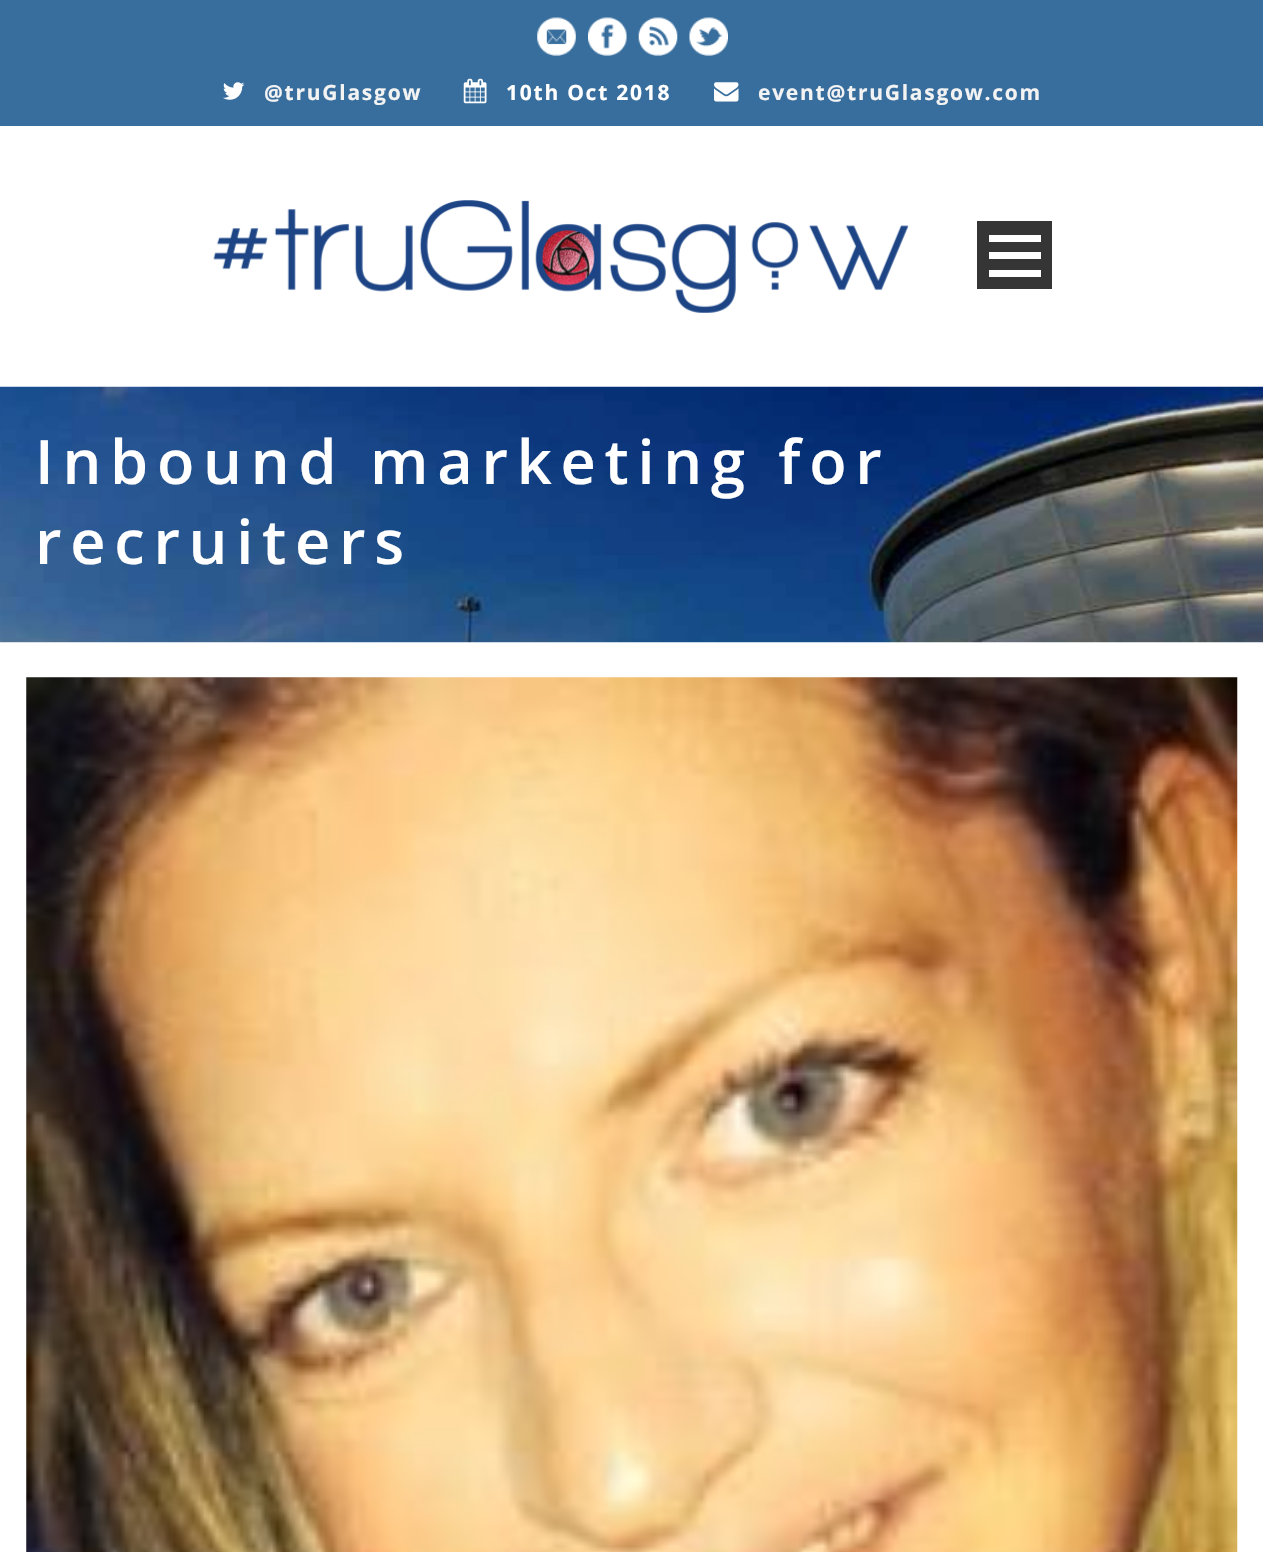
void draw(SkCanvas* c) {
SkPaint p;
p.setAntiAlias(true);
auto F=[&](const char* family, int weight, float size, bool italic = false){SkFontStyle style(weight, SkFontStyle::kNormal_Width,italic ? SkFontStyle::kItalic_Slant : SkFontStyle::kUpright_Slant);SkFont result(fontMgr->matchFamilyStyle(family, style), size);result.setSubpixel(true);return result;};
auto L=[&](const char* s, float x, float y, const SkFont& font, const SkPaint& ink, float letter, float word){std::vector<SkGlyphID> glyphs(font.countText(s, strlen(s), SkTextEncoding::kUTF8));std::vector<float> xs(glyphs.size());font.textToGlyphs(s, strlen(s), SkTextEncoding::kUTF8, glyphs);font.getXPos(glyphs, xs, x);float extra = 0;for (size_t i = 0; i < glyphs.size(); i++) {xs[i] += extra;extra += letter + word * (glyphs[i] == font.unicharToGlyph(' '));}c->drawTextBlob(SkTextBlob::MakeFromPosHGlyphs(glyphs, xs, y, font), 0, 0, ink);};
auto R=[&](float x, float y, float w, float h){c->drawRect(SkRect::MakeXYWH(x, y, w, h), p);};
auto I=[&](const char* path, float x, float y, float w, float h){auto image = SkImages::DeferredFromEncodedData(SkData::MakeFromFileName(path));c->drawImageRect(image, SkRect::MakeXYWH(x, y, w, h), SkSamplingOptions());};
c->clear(0xffffffff);
p.setColor(0xff386e9d);
R(0,0,1263,126);
I("1.png",537,17,39,39);
I("2.png",588,17,39,39);
I("3.png",638,17,40,39);
I("4.png",689,17,39,39);
I("5.png",223,82,22,18);
auto f1 = F("Open Sans",700,21);
p.setColor(0xfff3f3f3);
L("@truGlasgow",264,100,f1,p,1.75,0);
I("6.png",463,78,24,26);
p.setColor(0xffffffff);
L("10th Oct 2018",506,100,f1,p,1.75,0);
I("7.png",714,82,25,20);
p.setColor(0xfff3f3f3);
L("event@truGlasgow.com",758,100,f1,p,1.75,0);
I("8.png",213,200,696,113);
p.setColor(0xff353535);
R(977,221,75,68);
p.setColor(0xffffffff);
R(989,270,52,7);
R(989,252,52,7);
R(989,235,52,7);
I("9.png",0,386,1263,257);
auto f2 = F("Open Sans",600,61.25);
L("Inbound marketing for",35,484,f2,p,8.75,0);
L("recruiters",35,564,f2,p,8.75,0);
I("10.png",26,677,1212,875);
}
